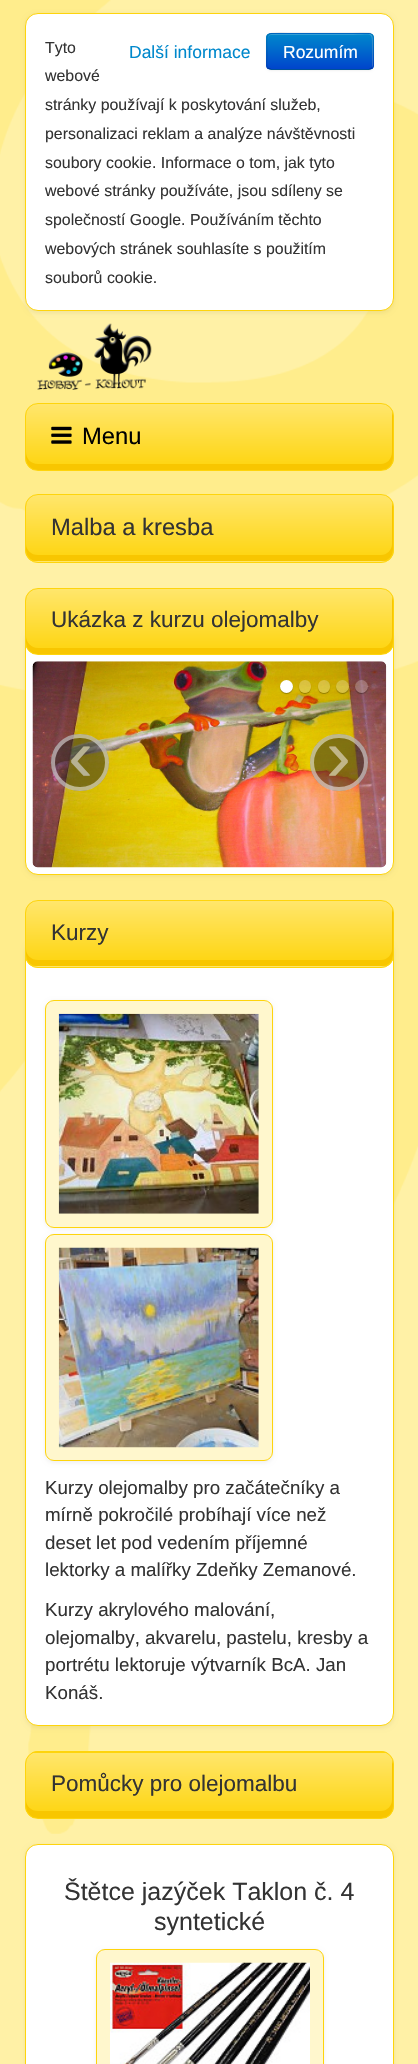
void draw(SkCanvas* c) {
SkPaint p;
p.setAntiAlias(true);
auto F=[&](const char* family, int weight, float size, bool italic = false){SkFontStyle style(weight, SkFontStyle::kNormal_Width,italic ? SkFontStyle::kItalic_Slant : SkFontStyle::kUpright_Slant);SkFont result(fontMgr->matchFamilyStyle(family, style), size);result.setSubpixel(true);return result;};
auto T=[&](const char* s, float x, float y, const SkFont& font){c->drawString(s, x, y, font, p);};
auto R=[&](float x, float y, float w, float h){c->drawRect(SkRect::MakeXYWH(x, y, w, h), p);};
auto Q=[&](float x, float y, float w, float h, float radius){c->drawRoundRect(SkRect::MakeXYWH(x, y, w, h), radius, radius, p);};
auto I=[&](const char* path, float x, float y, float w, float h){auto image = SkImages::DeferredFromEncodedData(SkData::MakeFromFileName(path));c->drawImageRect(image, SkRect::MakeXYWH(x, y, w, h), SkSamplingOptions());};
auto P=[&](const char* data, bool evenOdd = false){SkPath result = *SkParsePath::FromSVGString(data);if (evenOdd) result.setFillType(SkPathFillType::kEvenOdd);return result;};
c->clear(0xfffff1a6);
I("1.png",0,0,418,1834);
p.setColor(0x0f000000);
p.setMaskFilter(SkMaskFilter::MakeBlur(kNormal_SkBlurStyle, 2));
c->drawRoundRect(SkRect::MakeXYWH(25,14,369,299),13,13,p);
p.setMaskFilter(nullptr);
p.setColor(0xffffffff);
c->drawRoundRect(SkRect::MakeXYWH(25.5,13.5,368,297),12.5,12.5,p);
p.setStroke(true);
p.setStrokeWidth(1);
p.setColor(0xfffed40c);
c->drawRoundRect(SkRect::MakeXYWH(25.5,13.5,368,297),12.5,12.5,p);
auto f1 = F("Liberation Sans",400,15.9);
p.setStroke(false);
p.setColor(0xff333333);
T("Tyto",45,53,f1);
auto f2 = F("Liberation Sans",400,17.5);
p.setColor(0xff0088cc);
T("Další informace",129,58,f2);
p.setColor(0x0d000000);
p.setMaskFilter(SkMaskFilter::MakeBlur(kNormal_SkBlurStyle, 1));
c->drawRoundRect(SkRect::MakeXYWH(266,34,108,37),5,5,p);
p.setMaskFilter(nullptr);
p.setColor(0xff006dcc);
Q(266,33,108,37,5);
c->save();
c->clipPath(P("M271 33h98c3 0 5 2 5 5v27c0 3-2 5-5 5h-98c-3 0-5-2-5-5v-27c0-3 2-5 5-5z"),true);
{
const SkColor colors[] = {0xff0088cc,0xff0044cc};
const float stops[] = {0,1};
const SkPoint ends[] = {{320,34}, {320,69}};
p.setShader(SkGradientShader::MakeLinear(ends, colors, stops, 2, SkTileMode::kClamp));
p.setAlpha(255);
}
R(266,34,108,35);
c->restore();
p.setShader(nullptr);
p.setColor(0x33ffffff);
c->drawPath(P("M271 35h82c20 0 19-4 19 13v20c0-1 1-2 1-3v-27c0-2-2-4-4-4h-97c-2 0-4 2-4 4v1c0-2 1-4 3-4z"),p);
p.setStroke(true);
p.setStrokeWidth(1.2);
p.setColor(0x40000000);
c->drawPath(P("M372 68l-3 1.5h-98l-3-1.5"),p);
p.setColor(0x1a000000);
c->drawPath(P("M268 68c-2.5-2.5-1-9-1-12c0-25.5-5-23 20.5-23h65c23.5 0 20.5-3.5 20.5 18v9.5c0 2.5 1 5.5-1 7.5"),p);
p.setStroke(false);
p.setColor(0xffffffff);
T("Rozumím",283,58,f2);
p.setColor(0xff333333);
T("webové",45,81,f1);
T("stránky používají k poskytování služeb,",45,110,f1);
T("personalizaci reklam a analýze návštěvnosti",45,139,f1);
T("soubory cookie. Informace o tom, jak tyto",45,168,f1);
T("webové stránky používáte, jsou sdíleny se",45,196,f1);
T("společností Google. Používáním těchto",45,225,f1);
T("webových stránek souhlasíte s použitím",45,254,f1);
T("souborů cookie.",45,283,f1);
I("2.png",37,323,115,67);
c->save();
c->clipPath(P("M38 403h343c7 0 13 6 13 13v42c0 7-6 13-13 13h-343c-7 0-13-6-13-13v-42c0-7 6-13 13-13z"),true);
{
const SkColor colors[] = {0xffffe66c,0xfffed40c};
const float stops[] = {0,1};
const SkPoint ends[] = {{209,404}, {209,470}};
p.setShader(SkGradientShader::MakeLinear(ends, colors, stops, 2, SkTileMode::kClamp));
p.setAlpha(255);
}
R(25,404,369,66);
c->restore();
p.setShader(nullptr);
p.setColor(0xfff8c600);
c->drawPath(P("M26 452v7c0 6 5 11 11 11h345c6 0 11-5 11-11v-44l-1-5v42c0 7-5 12-11 12h-343c-7 0-12-5-12-12z"),p);
p.setStroke(true);
p.setStrokeWidth(1);
p.setColor(0xfffed40c);
c->drawRoundRect(SkRect::MakeXYWH(25.5,403.5,368,67),12.5,12.5,p);
I("3.png",51,426,21,18);
auto f3 = F("Liberation Sans",400,23.75);
p.setStroke(false);
p.setColor(0xff000000);
T("Menu",82,444,f3);
c->save();
c->clipPath(P("M38 494h343c7 0 13 6 13 13v43c0 7-6 13-13 13h-343c-7 0-13-6-13-13v-43c0-7 6-13 13-13z"),true);
{
const SkColor colors[] = {0xffffe66c,0xfffed40c};
const float stops[] = {0,1};
const SkPoint ends[] = {{209,495}, {209,561}};
p.setShader(SkGradientShader::MakeLinear(ends, colors, stops, 2, SkTileMode::kClamp));
p.setAlpha(255);
}
R(25,495,369,66);
{
const SkColor colors[] = {0xffffe66c,0xfffed40c};
const float stops[] = {0,1};
const SkPoint ends[] = {{209,561}, {209,628}};
p.setShader(SkGradientShader::MakeLinear(ends, colors, stops, 2, SkTileMode::kClamp));
p.setAlpha(255);
}
R(25,561,369,2);
c->restore();
p.setShader(nullptr);
p.setColor(0xfff8c600);
c->drawPath(P("M26 544v6c0 6 5 11 11 11h345c6 0 11-5 11-11v-44l-1-5v43c0 6-5 11-11 11h-343c-7 0-12-5-12-11z"),p);
p.setStroke(true);
p.setColor(0xfffed40c);
c->drawRoundRect(SkRect::MakeXYWH(25.5,494.5,368,68),12.5,12.5,p);
p.setStroke(false);
p.setColor(0xff333333);
T("Malba a kresba",51,535,f3);
p.setColor(0x0f000000);
p.setMaskFilter(SkMaskFilter::MakeBlur(kNormal_SkBlurStyle, 2));
c->drawRoundRect(SkRect::MakeXYWH(25,629,369,247),13,13,p);
p.setMaskFilter(nullptr);
p.setColor(0xffffffff);
c->drawRoundRect(SkRect::MakeXYWH(25.5,628.5,368,246),12.5,12.5,p);
p.setStroke(true);
p.setColor(0xfffed40c);
c->drawRoundRect(SkRect::MakeXYWH(25.5,628.5,368,246),12.5,12.5,p);
c->save();
c->clipPath(P("M38 588h343c7 0 13 6 13 13v41c0 7-6 13-13 13h-343c-7 0-13-6-13-13v-41c0-7 6-13 13-13z"),true);
p.setStroke(false);
{
const SkColor colors[] = {0xffffe66c,0xfffed40c};
const float stops[] = {0,1};
const SkPoint ends[] = {{209,589}, {209,654}};
p.setShader(SkGradientShader::MakeLinear(ends, colors, stops, 2, SkTileMode::kClamp));
p.setAlpha(255);
}
R(25,589,369,65);
c->restore();
p.setShader(nullptr);
p.setColor(0xfff8c600);
c->drawPath(P("M26 636v7c0 6 5 11 11 11h345c6 0 11-5 11-11v-43l-1-5v41c0 6-5 12-11 12h-343c-7 0-12-6-12-12z"),p);
p.setStroke(true);
p.setColor(0xfffed40c);
c->drawRoundRect(SkRect::MakeXYWH(25.5,588.5,368,66),12.5,12.5,p);
auto f4 = F("Liberation Sans",400,22.5);
p.setStroke(false);
p.setColor(0xff333333);
T("Ukázka z kurzu olejomalby",51,627,f4);
I("4.png",32,661,355,207);
p.setColor(0x4d000000);
p.setMaskFilter(SkMaskFilter::MakeBlur(kNormal_SkBlurStyle, .5));
c->drawRoundRect(SkRect::MakeXYWH(280,681,13,13),6.5,6.5,p);
p.setMaskFilter(nullptr);
p.setColor(0xffffffff);
c->drawCircle(286.5,686.5,6.5,p);
c->save();
c->clipPath(P("M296 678h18v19h-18zm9 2c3.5 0 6 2.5 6 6v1c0 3.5-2.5 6-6 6c-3.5 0-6-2.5-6-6v-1c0-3.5 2.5-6 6-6z",true),true);
p.setColor(0x4d000000);
p.setMaskFilter(SkMaskFilter::MakeBlur(kNormal_SkBlurStyle, .5));
c->drawRoundRect(SkRect::MakeXYWH(299,681,12,13),6,6,p);
p.setMaskFilter(nullptr);
c->restore();
p.setColor(0x40ffffff);
Q(299,680,12,13,6);
c->save();
c->clipPath(P("M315 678h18v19h-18zm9 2c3.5 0 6 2.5 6 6v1c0 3.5-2.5 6-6 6c-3.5 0-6-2.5-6-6v-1c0-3.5 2.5-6 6-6z",true),true);
p.setColor(0x4d000000);
p.setMaskFilter(SkMaskFilter::MakeBlur(kNormal_SkBlurStyle, .5));
c->drawRoundRect(SkRect::MakeXYWH(318,681,12,13),6,6,p);
p.setMaskFilter(nullptr);
c->restore();
p.setColor(0x40ffffff);
Q(318,680,12,13,6);
c->save();
c->clipPath(P("M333 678h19v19h-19zm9.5 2c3.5 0 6.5 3 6.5 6.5c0 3.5-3 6.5-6.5 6.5c-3.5 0-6.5-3-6.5-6.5c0-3.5 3-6.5 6.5-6.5z",true),true);
p.setColor(0x4d000000);
p.setMaskFilter(SkMaskFilter::MakeBlur(kNormal_SkBlurStyle, .5));
c->drawRoundRect(SkRect::MakeXYWH(336,681,13,13),6.5,6.5,p);
p.setMaskFilter(nullptr);
c->restore();
p.setColor(0x40ffffff);
c->drawCircle(342.5,686.5,6.5,p);
c->save();
c->clipPath(P("M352 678h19v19h-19zm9.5 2c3.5 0 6.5 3 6.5 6.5c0 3.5-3 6.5-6.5 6.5c-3.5 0-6.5-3-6.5-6.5c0-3.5 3-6.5 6.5-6.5z",true),true);
p.setColor(0x4d000000);
p.setMaskFilter(SkMaskFilter::MakeBlur(kNormal_SkBlurStyle, .5));
c->drawRoundRect(SkRect::MakeXYWH(355,681,13,13),6.5,6.5,p);
p.setMaskFilter(nullptr);
c->restore();
p.setColor(0x40ffffff);
c->drawCircle(361.5,686.5,6.5,p);
p.setColor(0x80222222);
Q(51,734,58,57,28.5);
p.setStroke(true);
p.setStrokeWidth(4);
p.setColor(0x80ffffff);
c->drawRoundRect(SkRect::MakeXYWH(53,736,54,53),26.5,26.5,p);
auto f5 = F("Liberation Sans",400,75);
p.setStroke(false);
p.setColor(0xffb7b294);
T("‹",68,781,f5);
p.setColor(0x80222222);
Q(310,734,58,57,28.5);
p.setStroke(true);
p.setColor(0x80ffffff);
c->drawRoundRect(SkRect::MakeXYWH(312,736,54,53),26.5,26.5,p);
p.setStroke(false);
p.setColor(0xffc1b689);
T("›",326,781,f5);
p.setColor(0x0f000000);
p.setMaskFilter(SkMaskFilter::MakeBlur(kNormal_SkBlurStyle, 2));
c->drawRoundRect(SkRect::MakeXYWH(25,941,369,787),13,13,p);
p.setMaskFilter(nullptr);
p.setColor(0xffffffff);
c->drawRoundRect(SkRect::MakeXYWH(25.5,940.5,368,785),12.5,12.5,p);
p.setStroke(true);
p.setStrokeWidth(1);
p.setColor(0xfffed40c);
c->drawRoundRect(SkRect::MakeXYWH(25.5,940.5,368,785),12.5,12.5,p);
c->save();
c->clipPath(P("M38 900h343c7 0 13 6 13 13v42c0 7-6 13-13 13h-343c-7 0-13-6-13-13v-42c0-7 6-13 13-13z"),true);
p.setStroke(false);
{
const SkColor colors[] = {0xffffe66c,0xfffed40c};
const float stops[] = {0,1};
const SkPoint ends[] = {{209,901}, {209,966}};
p.setShader(SkGradientShader::MakeLinear(ends, colors, stops, 2, SkTileMode::kClamp));
p.setAlpha(255);
}
R(25,901,369,65);
{
const SkColor colors[] = {0xffffe66c,0xfffed40c};
const float stops[] = {0,1};
const SkPoint ends[] = {{209,966}, {209,1031}};
p.setShader(SkGradientShader::MakeLinear(ends, colors, stops, 2, SkTileMode::kClamp));
p.setAlpha(255);
}
R(25,966,369,2);
c->restore();
p.setShader(nullptr);
p.setColor(0xfff8c600);
c->drawPath(P("M26 949v6c0 6 5 11 11 11h345c6 0 11-5 11-11v-43l-1-5v42c0 6-5 11-11 11h-343c-7 0-12-5-12-11z"),p);
p.setStroke(true);
p.setColor(0xfffed40c);
c->drawRoundRect(SkRect::MakeXYWH(25.5,900.5,368,67),12.5,12.5,p);
p.setStroke(false);
p.setColor(0xff333333);
T("Kurzy",51,940,f4);
p.setColor(0x0f000000);
p.setMaskFilter(SkMaskFilter::MakeBlur(kNormal_SkBlurStyle, 2));
c->drawRoundRect(SkRect::MakeXYWH(45,1001,228,228),9,9,p);
p.setMaskFilter(nullptr);
p.setColor(0xfffff7cd);
c->drawRoundRect(SkRect::MakeXYWH(45.5,1000.5,227,227),8.5,8.5,p);
p.setStroke(true);
p.setColor(0xfffed40c);
c->drawRoundRect(SkRect::MakeXYWH(45.5,1000.5,227,227),8.5,8.5,p);
I("5.png",58,1013,201,201);
p.setStroke(false);
p.setColor(0x0f000000);
p.setMaskFilter(SkMaskFilter::MakeBlur(kNormal_SkBlurStyle, 2));
c->drawRoundRect(SkRect::MakeXYWH(45,1235,228,228),9,9,p);
p.setMaskFilter(nullptr);
p.setColor(0xfffff7cd);
c->drawRoundRect(SkRect::MakeXYWH(45.5,1234.5,227,226),8.5,8.5,p);
p.setStroke(true);
p.setColor(0xfffed40c);
c->drawRoundRect(SkRect::MakeXYWH(45.5,1234.5,227,226),8.5,8.5,p);
I("6.png",58,1247,201,201);
auto f6 = F("Liberation Sans",400,18.75);
p.setStroke(false);
p.setColor(0xff333333);
T("Kurzy olejomalby pro začátečníky a",45,1494,f6);
T("mírně pokročilé probíhají více než",45,1521,f6);
T("deset let pod vedením příjemné",45,1549,f6);
T("lektorky a malířky Zdeňky Zemanové.",45,1576,f6);
T("Kurzy akrylového malování,",45,1616,f6);
T("olejomalby, akvarelu, pastelu, kresby a",45,1644,f6);
T("portrétu lektoruje výtvarník BcA. Jan",45,1671,f6);
T("Konáš.",45,1699,f6);
c->save();
c->clipPath(P("M38 1751h343c7 0 13 6 13 13v42c0 7-6 13-13 13h-343c-7 0-13-6-13-13v-42c0-7 6-13 13-13z"),true);
{
const SkColor colors[] = {0xffffe66c,0xfffed40c};
const float stops[] = {0,1};
const SkPoint ends[] = {{209,1688}, {209,1753}};
p.setShader(SkGradientShader::MakeLinear(ends, colors, stops, 2, SkTileMode::kClamp));
p.setAlpha(255);
}
R(25,1751,369,2);
{
const SkColor colors[] = {0xffffe66c,0xfffed40c};
const float stops[] = {0,1};
const SkPoint ends[] = {{209,1753}, {209,1818}};
p.setShader(SkGradientShader::MakeLinear(ends, colors, stops, 2, SkTileMode::kClamp));
p.setAlpha(255);
}
R(25,1753,369,65);
c->restore();
p.setShader(nullptr);
p.setColor(0xfff8c600);
c->drawPath(P("M26 1800v7c0 6 5 11 11 11h345c6 0 11-5 11-11v-43l-1-5v41c0 6-5 11-11 11h-343c-7 0-12-5-12-11z"),p);
p.setStroke(true);
p.setColor(0xfffed40c);
c->drawRoundRect(SkRect::MakeXYWH(25.5,1751.5,368,67),12.5,12.5,p);
p.setStroke(false);
p.setColor(0xff333333);
T("Pomůcky pro olejomalbu",51,1791,f4);
p.setColor(0x0f000000);
p.setMaskFilter(SkMaskFilter::MakeBlur(kNormal_SkBlurStyle, 2));
c->drawRoundRect(SkRect::MakeXYWH(25,1845,369,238),13,13,p);
p.setMaskFilter(nullptr);
p.setColor(0xffffffff);
c->drawRoundRect(SkRect::MakeXYWH(25.5,1844.5,368,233),12.5,12.5,p);
p.setStroke(true);
p.setColor(0xfffed40c);
c->drawRoundRect(SkRect::MakeXYWH(25.5,1844.5,368,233),12.5,12.5,p);
auto f7 = F("Liberation Sans",400,25);
p.setStroke(false);
p.setColor(0xff333333);
T("Štětce jazýček Taklon č. 4",64,1900,f7);
T("syntetické",154,1930,f7);
p.setColor(0x0f000000);
p.setMaskFilter(SkMaskFilter::MakeBlur(kNormal_SkBlurStyle, 2));
c->drawRoundRect(SkRect::MakeXYWH(96,1950,228,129),9,9,p);
p.setMaskFilter(nullptr);
p.setColor(0xfffff7cd);
c->drawRoundRect(SkRect::MakeXYWH(96.5,1949.5,227,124),8.5,8.5,p);
p.setStroke(true);
p.setColor(0xfffed40c);
c->drawRoundRect(SkRect::MakeXYWH(96.5,1949.5,227,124),8.5,8.5,p);
I("7.png",110,1962,200,102);
}
